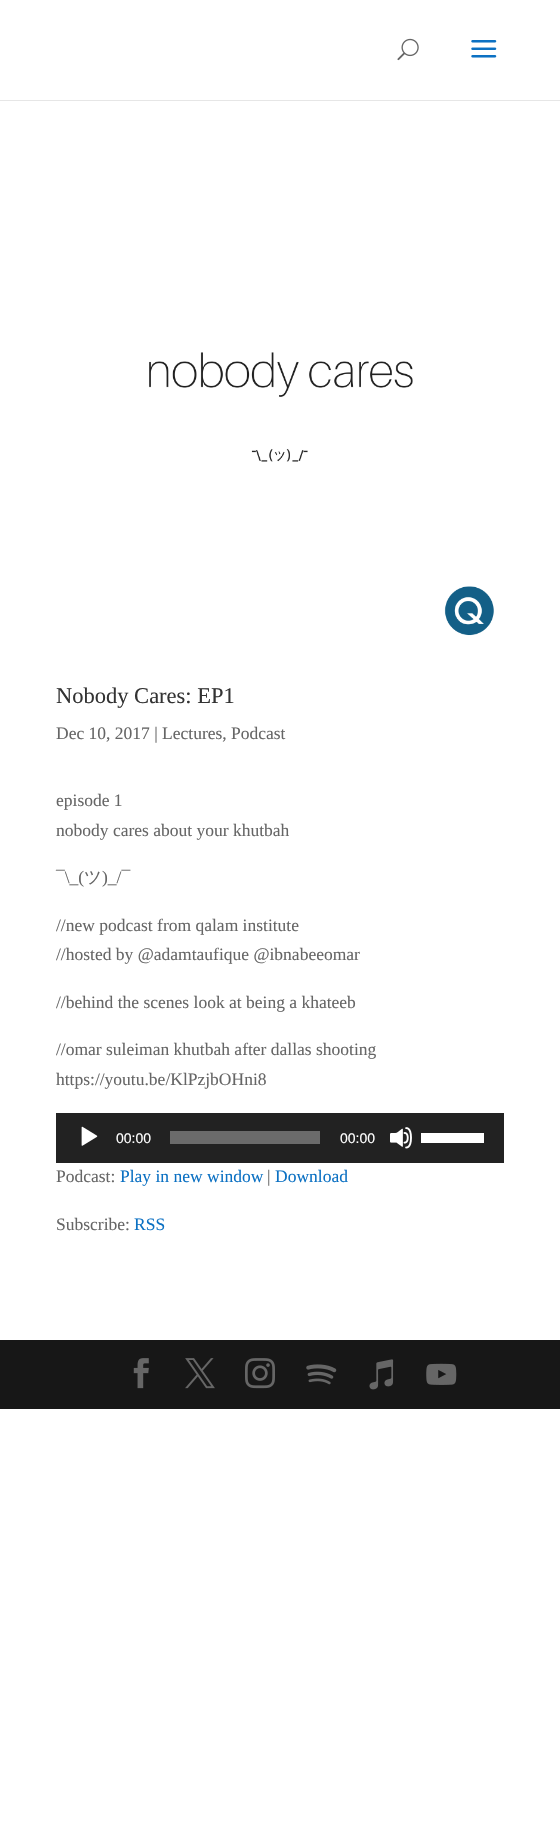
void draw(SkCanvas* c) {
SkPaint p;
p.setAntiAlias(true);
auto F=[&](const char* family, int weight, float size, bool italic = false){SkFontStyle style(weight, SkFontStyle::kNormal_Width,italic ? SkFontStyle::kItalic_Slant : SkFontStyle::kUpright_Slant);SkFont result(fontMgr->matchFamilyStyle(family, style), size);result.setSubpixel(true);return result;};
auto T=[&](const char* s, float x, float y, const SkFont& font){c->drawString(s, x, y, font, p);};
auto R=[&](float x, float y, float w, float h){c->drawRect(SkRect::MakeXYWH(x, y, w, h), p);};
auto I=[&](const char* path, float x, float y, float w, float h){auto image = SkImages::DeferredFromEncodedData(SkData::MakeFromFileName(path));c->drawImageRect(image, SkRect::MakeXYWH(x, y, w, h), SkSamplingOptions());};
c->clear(0xffffffff);
p.setColor(0xffe6e6e6);
R(0,100,560,1);
I("1.png",397,38,22,23);
I("2.png",471,40,26,18);
I("3.png",149,352,345,284);
auto f1 = F("Liberation Serif",400,22.5);
p.setColor(0xff333333);
T("Nobody Cares: EP1",56,703,f1);
auto f2 = F("Liberation Serif",400,17.5);
p.setColor(0xff666666);
T("Dec 10, 2017 | Lectures, Podcast",56,739,f2);
T("episode 1",56,806,f2);
T("nobody cares about your khutbah",56,836,f2);
T("¯\\_(",56,883,f2);
auto f3 = F("WenQuanYi Zen Hei",500,17.5);
T("ツ",84,883,f3);
T(")_/¯",102,883,f2);
T("//new podcast from qalam institute",56,931,f2);
T("//hosted by @adamtaufique @ibnabeeomar",56,960,f2);
T("//behind the scenes look at being a khateeb",56,1008,f2);
T("//omar suleiman khutbah after dallas shooting",56,1055,f2);
T("https://youtu.be/KlPzjbOHni8",56,1085,f2);
p.setColor(0xff222222);
R(56,1113,448,50);
I("4.png",81,1126,17,20);
auto f4 = F("Liberation Sans",400,14);
p.setColor(0xffffffff);
T("00:00",116,1143,f4);
p.setColor(0xff6b6b6b);
R(170,1131,150,13);
p.setColor(0xffffffff);
T("00:00",340,1143,f4);
I("5.png",390,1127,22,22);
R(421,1133,63,10);
p.setColor(0xff666666);
T("Podcast:",56,1182,f2);
p.setColor(0xff0c71c3);
T("Play in new window",120,1182,f2);
p.setColor(0xff666666);
T("|",267,1182,f2);
p.setColor(0xff0c71c3);
T("Download",275,1182,f2);
p.setColor(0xff666666);
T("Subscribe:",56,1230,f2);
p.setColor(0xff0c71c3);
T("RSS",134,1230,f2);
p.setColor(0xff171717);
R(0,1340,560,69);
I("6.png",133,1358,16,31);
I("7.png",185,1358,30,31);
I("8.png",245,1358,30,31);
I("9.png",306,1364,31,21);
I("10.png",369,1359,25,31);
I("11.png",426,1363,31,22);
}
